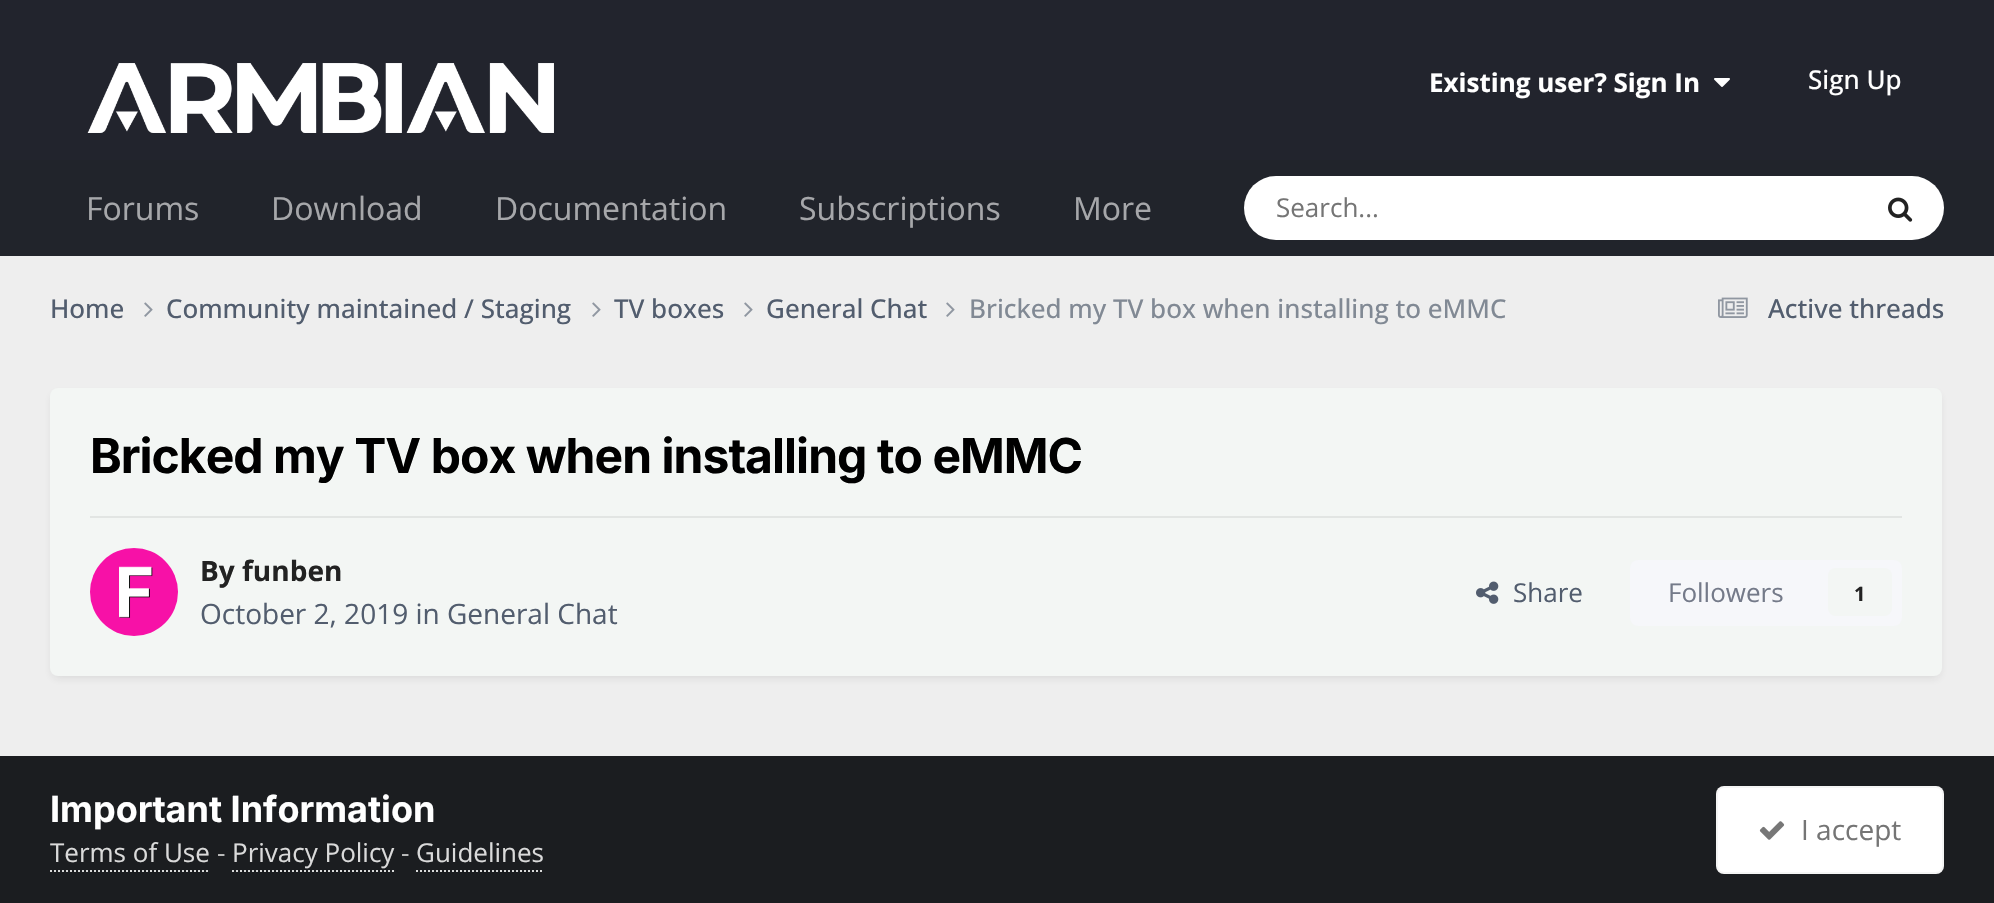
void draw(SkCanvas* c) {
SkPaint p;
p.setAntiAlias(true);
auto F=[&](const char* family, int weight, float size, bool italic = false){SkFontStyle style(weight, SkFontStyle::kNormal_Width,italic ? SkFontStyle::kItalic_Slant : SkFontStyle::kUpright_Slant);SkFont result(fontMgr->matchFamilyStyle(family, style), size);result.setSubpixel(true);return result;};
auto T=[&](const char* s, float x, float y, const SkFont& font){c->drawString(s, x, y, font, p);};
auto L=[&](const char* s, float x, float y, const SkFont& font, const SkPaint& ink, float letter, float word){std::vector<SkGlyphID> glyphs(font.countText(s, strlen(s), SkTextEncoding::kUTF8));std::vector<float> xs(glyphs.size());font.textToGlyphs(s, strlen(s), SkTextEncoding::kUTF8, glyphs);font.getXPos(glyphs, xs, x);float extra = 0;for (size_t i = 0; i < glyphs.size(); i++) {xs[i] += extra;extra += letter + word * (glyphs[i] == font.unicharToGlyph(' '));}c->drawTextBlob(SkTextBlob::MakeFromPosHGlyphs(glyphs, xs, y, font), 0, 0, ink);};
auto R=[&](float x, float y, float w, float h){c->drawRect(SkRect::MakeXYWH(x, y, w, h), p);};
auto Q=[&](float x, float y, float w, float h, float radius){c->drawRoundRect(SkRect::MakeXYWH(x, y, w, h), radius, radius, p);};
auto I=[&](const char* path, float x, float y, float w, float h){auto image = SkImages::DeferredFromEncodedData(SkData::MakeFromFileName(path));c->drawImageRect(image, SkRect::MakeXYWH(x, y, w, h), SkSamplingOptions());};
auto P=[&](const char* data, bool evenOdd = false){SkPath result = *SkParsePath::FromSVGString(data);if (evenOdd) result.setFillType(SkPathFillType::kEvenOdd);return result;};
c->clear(0xffeeeeee);
p.setColor(0xff22242d);
R(0,0,1994,160);
I("1.png",87,63,467,70);
auto f1 = F("Open Sans",700,26);
p.setColor(0xffffffff);
T("Existing user? Sign In",1429,92,f1);
I("2.png",1714,78,16,9);
auto f2 = F("Open Sans",500,26);
T("Sign Up",1808,89,f2);
p.setColor(0xff21242b);
R(0,160,1994,96);
auto f3 = F("Open Sans",400,32);
p.setColor(0xffa6a7aa);
T("Forums",86,220,f3);
T("Download",271,220,f3);
T("Documentation",495,220,f3);
T("Subscriptions",799,220,f3);
T("More",1073,220,f3);
p.setColor(0xffffffff);
Q(1244,176,700,64,32);
auto f4 = F("Open Sans",400,26);
p.setColor(0xff757575);
T("Search...",1276,217,f4);
I("3.png",1888,197,25,25);
p.setColor(0xff525d6e);
T("Home",50,318,f2);
I("4.png",144,302,9,15);
T("Community maintained / Staging",166,318,f2);
I("4.png",592,302,9,15);
c->save();
c->clipRect(SkRect::MakeXYWH(614,290,152,38));
T("TV boxes",614,318,f2);
c->restore();
I("4.png",744,302,9,15);
T("General Chat",766,318,f2);
I("4.png",946,302,9,15);
p.setColor(0xff818994);
T("Bricked my TV box when installing to eMMC",969,318,f2);
I("5.png",1718,297,30,21);
p.setColor(0xff525d6e);
T("Active threads",1768,318,f2);
p.setColor(0x1a1b1d20);
p.setMaskFilter(SkMaskFilter::MakeBlur(kNormal_SkBlurStyle, 4));
c->drawRoundRect(SkRect::MakeXYWH(52,394,1888,284),6,6,p);
p.setMaskFilter(nullptr);
p.setColor(0xfff3f6f4);
Q(50,388,1892,288,8);
auto f5 = F("Inter",700,48);
p.setColor(0xff000000);
L("Bricked my TV box when installing to eMMC",90,473,f5,p,-.95,0);
p.setColor(0xffe2e5e3);
R(90,516,1812,2);
I("6.png",90,548,88,88);
auto f6 = F("Open Sans",700,28);
p.setColor(0xff222222);
T("By funben",200,581,f6);
auto f7 = F("Open Sans",400,28);
p.setColor(0xff525d6e);
T("October 2, 2019 in General Chat",200,624,f7);
I("7.png",1476,581,23,23);
T("Share",1513,602,f4);
p.setColor(0xfff6f7fa);
Q(1630,560,272,66,8);
p.setColor(0xff747a89);
T("Followers",1668,602,f4);
p.setColor(0xfff3f6f4);
Q(1828,568,64,48,8);
auto f8 = F("Open Sans",700,20);
p.setColor(0xff222222);
T("1",1854,601,f8);
p.setColor(0xff1b1d20);
R(0,756,1994,147);
auto f9 = F("Inter",700,36);
p.setColor(0xffffffff);
T("Important Information",50,822,f9);
p.setColor(0xffdadada);
T("Terms of Use",50,862,f4);
p.setStroke(true);
p.setStrokeWidth(2);
p.setPathEffect(SkDashPathEffect::Make({{2,2}}, 0));
c->drawPath(P("M50 871h160"),p);
p.setPathEffect(nullptr);
p.setStroke(false);
p.setColor(0xffc0c0c0);
T("-",217,862,f4);
p.setColor(0xffdadada);
T("Privacy Policy",232,862,f4);
p.setStroke(true);
p.setPathEffect(SkDashPathEffect::Make({{2,2}}, 0));
c->drawPath(P("M232 871h162"),p);
p.setPathEffect(nullptr);
p.setStroke(false);
p.setColor(0xffc0c0c0);
T("-",401,862,f4);
p.setColor(0xffdadada);
T("Guidelines",416,862,f4);
p.setStroke(true);
p.setPathEffect(SkDashPathEffect::Make({{2,2}}, 0));
c->drawPath(P("M416 871h128"),p);
p.setPathEffect(nullptr);
p.setStroke(false);
p.setColor(0xffffffff);
Q(1716,786,228,88,8);
p.setStroke(true);
p.setColor(0x12777777);
c->drawRoundRect(SkRect::MakeXYWH(1717,787,226,86),7,7,p);
I("8.png",1759,821,26,19);
p.setStroke(false);
p.setColor(0xff757575);
T("I accept",1801,840,f7);
}
